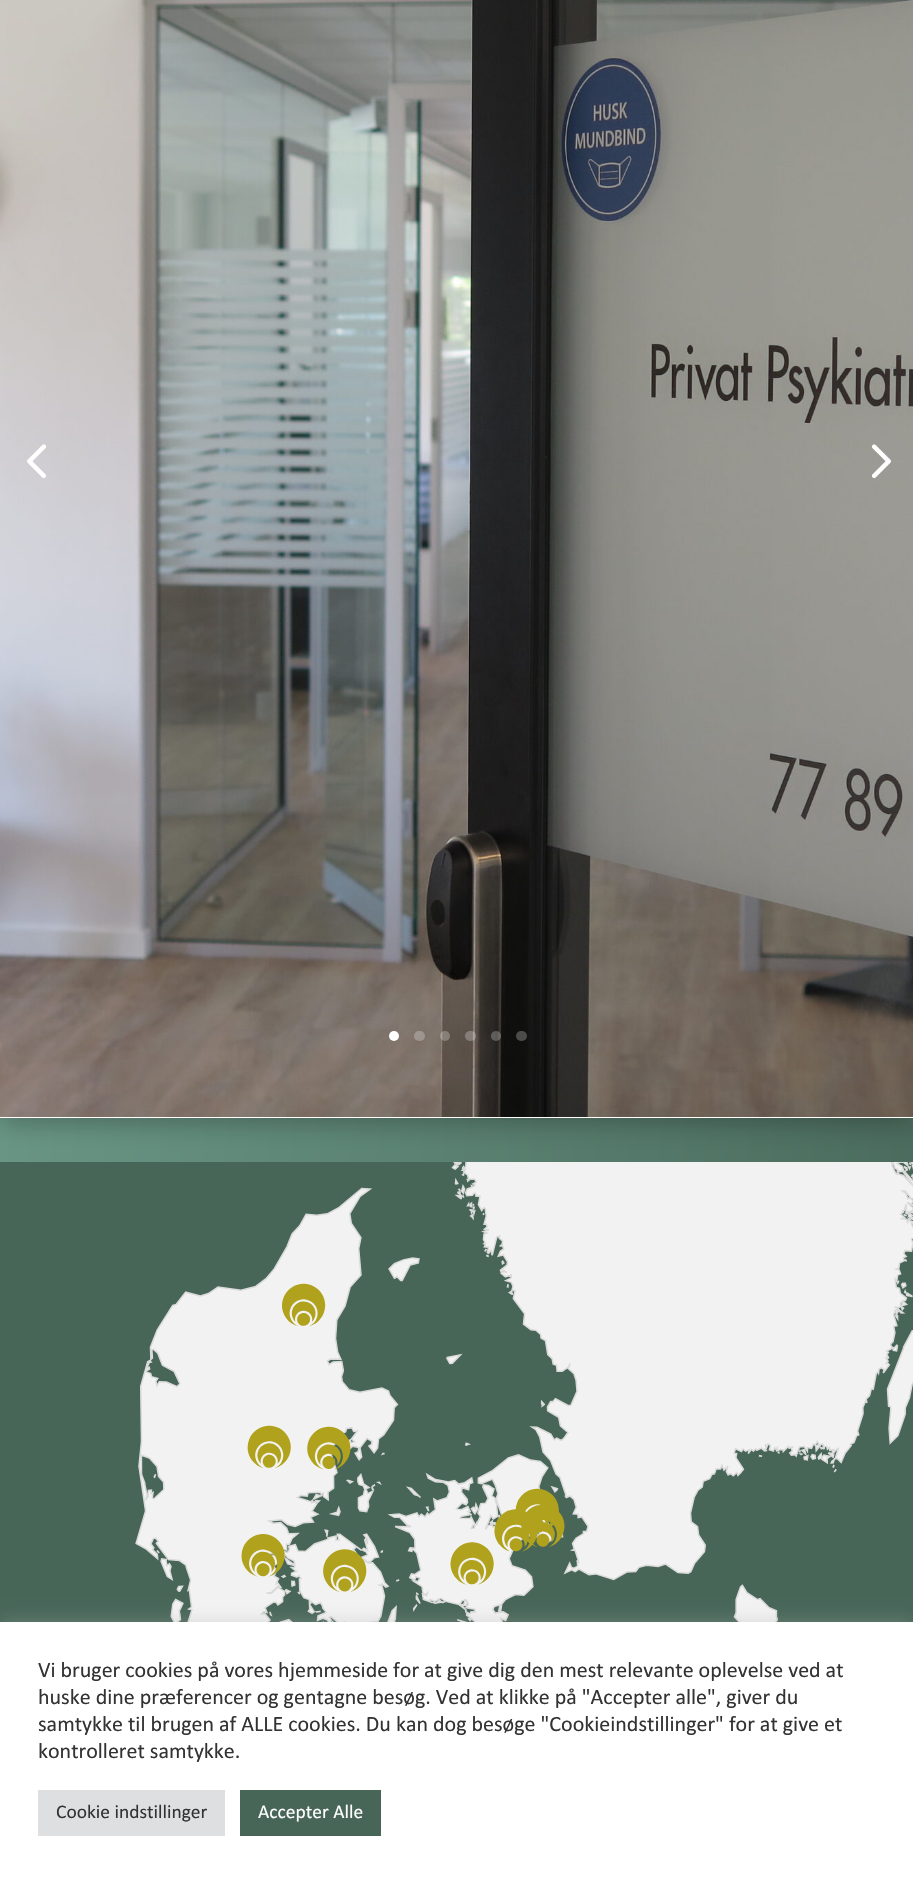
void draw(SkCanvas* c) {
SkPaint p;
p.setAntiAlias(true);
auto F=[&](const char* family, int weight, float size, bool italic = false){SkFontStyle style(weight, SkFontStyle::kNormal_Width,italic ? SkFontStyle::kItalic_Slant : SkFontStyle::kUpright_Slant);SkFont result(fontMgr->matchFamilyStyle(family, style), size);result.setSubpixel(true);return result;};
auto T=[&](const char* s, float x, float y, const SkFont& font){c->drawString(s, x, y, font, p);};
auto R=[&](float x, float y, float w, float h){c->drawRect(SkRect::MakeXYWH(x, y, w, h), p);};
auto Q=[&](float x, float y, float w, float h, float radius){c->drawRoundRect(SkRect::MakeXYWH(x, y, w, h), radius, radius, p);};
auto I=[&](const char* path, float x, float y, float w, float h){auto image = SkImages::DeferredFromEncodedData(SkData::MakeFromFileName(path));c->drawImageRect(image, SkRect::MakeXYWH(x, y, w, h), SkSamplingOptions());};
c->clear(0xffffffff);
{
const SkColor colors[] = {0xff476658,0xff699685};
const float stops[] = {0,1};
const SkPoint ends[] = {{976,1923}, {-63,1833}};
p.setShader(SkGradientShader::MakeLinear(ends, colors, stops, 2, SkTileMode::kClamp));
p.setAlpha(255);
}
R(0,1118,913,44);
I("4.png",0,1162,913,460);
p.setShader(nullptr);
p.setColor(0x4d000000);
p.setMaskFilter(SkMaskFilter::MakeBlur(kNormal_SkBlurStyle, 13.5));
c->drawRect(SkRect::MakeXYWH(0,-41,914,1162),p);
p.setMaskFilter(nullptr);
p.setColor(0xffffffff);
R(0,1117,913,1);
I("1.png",0,0,913,1117);
I("2.png",27,444,19,34);
I("3.png",871,444,20,35);
c->drawCircle(394,1036,5,p);
p.setColor(0x40ffffff);
Q(414,1031,11,10,5);
c->drawCircle(445,1036,5,p);
Q(465,1031,11,10,5);
c->drawCircle(496,1036,5,p);
Q(516,1031,11,10,5);
p.setColor(0x4dacabab);
p.setMaskFilter(SkMaskFilter::MakeBlur(kNormal_SkBlurStyle, 7.5));
c->drawRect(SkRect::MakeXYWH(0,1620,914,260),p);
p.setMaskFilter(nullptr);
p.setColor(0xffffffff);
R(0,1622,913,258);
auto f1 = F("Calibri",400,22);
p.setColor(0xff333333);
T("Vi bruger cookies på vores hjemmeside for at give dig den mest relevante oplevelse ved at",38,1677,f1);
T("huske dine præferencer og gentagne besøg. Ved at klikke på \"Accepter alle\", giver du",38,1704,f1);
T("samtykke til brugen af ALLE cookies. Du kan dog besøge \"Cookieindstillinger\" for at give et",38,1731,f1);
T("kontrolleret samtykke.",38,1758,f1);
p.setColor(0xffdedfe0);
R(38,1790,187,46);
auto f2 = F("Calibri",400,19.5);
p.setColor(0xff333333);
T("Cookie indstillinger",56,1818,f2);
p.setColor(0xff476658);
R(240,1790,141,46);
p.setColor(0xffffffff);
T("Accepter Alle",258,1818,f2);
}
